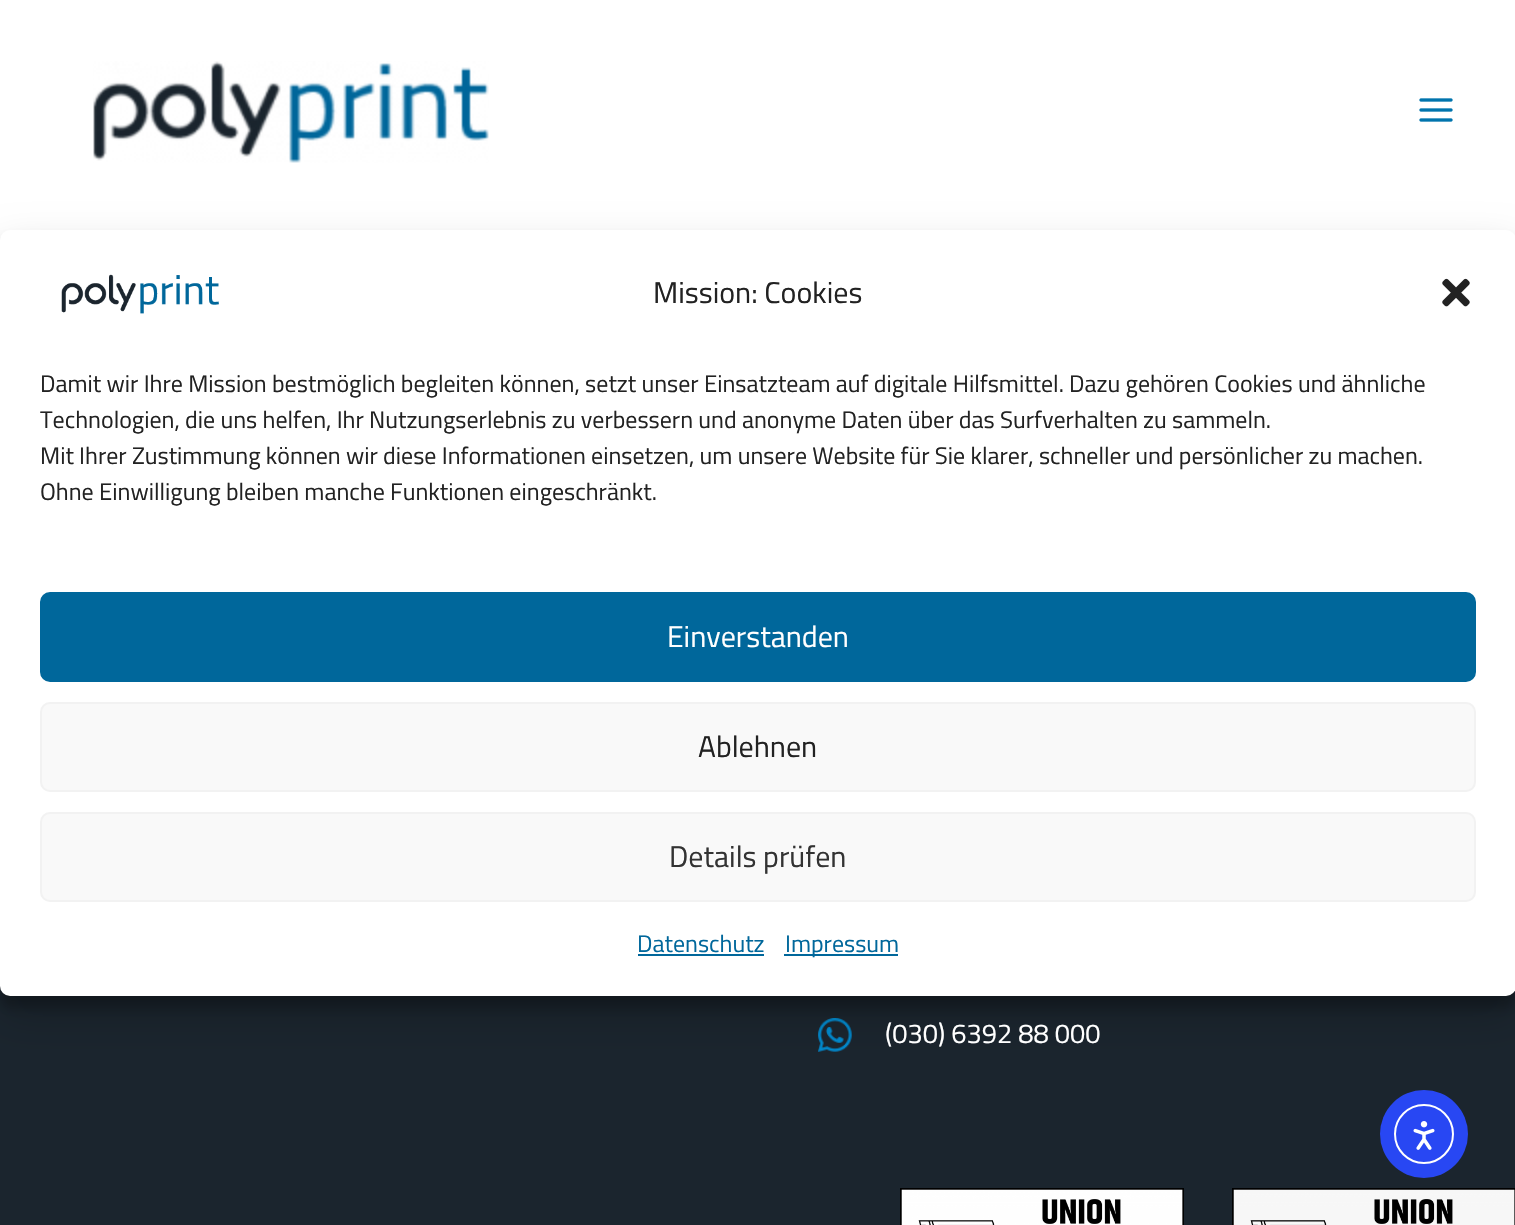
void draw(SkCanvas* c) {
SkPaint p;
p.setAntiAlias(true);
auto F=[&](const char* family, int weight, float size, bool italic = false){SkFontStyle style(weight, SkFontStyle::kNormal_Width,italic ? SkFontStyle::kItalic_Slant : SkFontStyle::kUpright_Slant);SkFont result(fontMgr->matchFamilyStyle(family, style), size);result.setSubpixel(true);return result;};
auto T=[&](const char* s, float x, float y, const SkFont& font){c->drawString(s, x, y, font, p);};
auto R=[&](float x, float y, float w, float h){c->drawRect(SkRect::MakeXYWH(x, y, w, h), p);};
auto Q=[&](float x, float y, float w, float h, float radius){c->drawRoundRect(SkRect::MakeXYWH(x, y, w, h), radius, radius, p);};
auto I=[&](const char* path, float x, float y, float w, float h){auto image = SkImages::DeferredFromEncodedData(SkData::MakeFromFileName(path));c->drawImageRect(image, SkRect::MakeXYWH(x, y, w, h), SkSamplingOptions());};
c->clear(0xffffffff);
p.setColor(0xff1b252e);
R(0,986,1515,239);
I("5.png",818,1018,34,34);
p.setColor(0x3b000000);
p.setMaskFilter(SkMaskFilter::MakeBlur(kNormal_SkBlurStyle, 6));
c->drawRoundRect(SkRect::MakeXYWH(0,242,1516,766),10,10,p);
p.setMaskFilter(nullptr);
p.setColor(0x30000000);
p.setMaskFilter(SkMaskFilter::MakeBlur(kNormal_SkBlurStyle, 20));
c->drawRoundRect(SkRect::MakeXYWH(0,250,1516,766),10,10,p);
p.setMaskFilter(nullptr);
p.setColor(0xffffffff);
Q(0,230,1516,766,10);
I("1.png",61,274,158,40);
auto f1 = F("Titillium Web",400,30);
p.setColor(0xff222222);
T("Mission: Cookies",653,303,f1);
I("2.png",1442,278,28,29);
auto f2 = F("Titillium Web",400,24);
T("Damit wir Ihre Mission bestmöglich begleiten können, setzt unser Einsatzteam auf digitale Hilfsmittel. Dazu gehören Cookies und ähnliche",40,392,f2);
T("Technologien, die uns helfen, Ihr Nutzungserlebnis zu verbessern und anonyme Daten über das Surfverhalten zu sammeln.",40,428,f2);
T("Mit Ihrer Zustimmung können wir diese Informationen einsetzen, um unsere Website für Sie klarer, schneller und persönlicher zu machen.",40,464,f2);
T("Ohne Einwilligung bleiben manche Funktionen eingeschränkt.",40,500,f2);
p.setColor(0xff00679b);
c->drawRoundRect(SkRect::MakeXYWH(41,593,1434,88),9,9,p);
p.setStroke(true);
p.setStrokeWidth(2);
c->drawRoundRect(SkRect::MakeXYWH(41,593,1434,88),9,9,p);
p.setStroke(false);
p.setColor(0xffffffff);
T("Einverstanden",667,647,f1);
p.setColor(0xfff9f9f9);
c->drawRoundRect(SkRect::MakeXYWH(41,703,1434,88),9,9,p);
p.setStroke(true);
p.setColor(0xfff2f2f2);
c->drawRoundRect(SkRect::MakeXYWH(41,703,1434,88),9,9,p);
p.setStroke(false);
p.setColor(0xff222222);
T("Ablehnen",698,757,f1);
p.setColor(0xfff9f9f9);
c->drawRoundRect(SkRect::MakeXYWH(41,813,1434,88),9,9,p);
p.setStroke(true);
p.setColor(0xfff2f2f2);
c->drawRoundRect(SkRect::MakeXYWH(41,813,1434,88),9,9,p);
p.setStroke(false);
p.setColor(0xff333333);
T("Details prüfen",669,867,f1);
p.setColor(0xff00679b);
T("Datenschutz",637,952,f2);
R(638,954,126,2);
R(784,954,114,2);
T("Impressum",785,952,f2);
I("3.png",93,61,396,102);
I("4.png",1419,98,34,24);
auto f3 = F("Titillium Web",400,27.25);
p.setColor(0xffffffff);
T("(030) 6392 88 000",885,1043,f3);
I("6.png",900,1188,284,37);
I("7.png",1232,1188,283,37);
p.setColor(0xff2847f3);
c->drawCircle(1424,1134,44,p);
p.setStroke(true);
p.setColor(0xffffffff);
c->drawCircle(1424,1134,29,p);
I("8.png",1413,1121,22,29);
}
